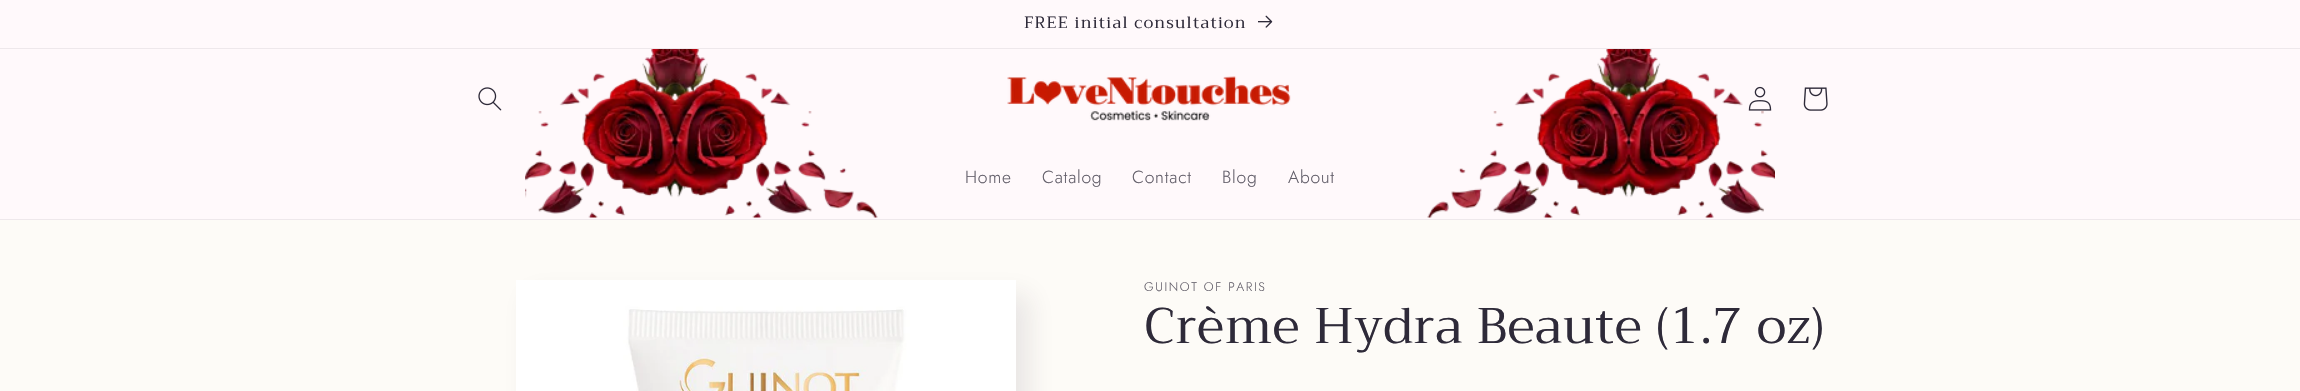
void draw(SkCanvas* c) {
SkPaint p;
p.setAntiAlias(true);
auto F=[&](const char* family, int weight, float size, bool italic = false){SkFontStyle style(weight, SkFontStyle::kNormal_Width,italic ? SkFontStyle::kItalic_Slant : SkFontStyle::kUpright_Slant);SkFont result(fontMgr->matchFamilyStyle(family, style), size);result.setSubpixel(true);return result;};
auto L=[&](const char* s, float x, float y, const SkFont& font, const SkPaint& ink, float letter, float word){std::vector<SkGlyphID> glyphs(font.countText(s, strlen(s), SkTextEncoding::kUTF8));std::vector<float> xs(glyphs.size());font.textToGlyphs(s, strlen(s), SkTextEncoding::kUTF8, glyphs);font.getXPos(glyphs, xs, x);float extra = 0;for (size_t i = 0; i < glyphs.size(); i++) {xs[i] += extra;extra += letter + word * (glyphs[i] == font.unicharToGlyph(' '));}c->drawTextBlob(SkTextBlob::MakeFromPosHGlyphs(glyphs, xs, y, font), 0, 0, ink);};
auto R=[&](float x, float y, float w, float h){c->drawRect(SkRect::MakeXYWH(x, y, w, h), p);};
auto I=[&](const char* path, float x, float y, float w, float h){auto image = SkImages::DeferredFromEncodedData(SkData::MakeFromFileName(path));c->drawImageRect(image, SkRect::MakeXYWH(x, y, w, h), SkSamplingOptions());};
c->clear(0xfffdfbf7);
p.setColor(0xfffff9fb);
R(0,0,2300,48);
p.setColor(0xffeee8eb);
R(0,48,2300,1);
auto f1 = F("Trirong",400,16.25);
p.setColor(0xff2e2a39);
L("FREE initial consultation",1024,28,f1,p,1.25,0);
I("1.png",1258,15,15,13);
p.setColor(0xfffff9fb);
R(0,49,2300,170);
I("2.png",525,49,1250,169);
p.setColor(0xffeee8eb);
R(0,219,2300,1);
I("3.png",478,87,24,24);
I("4.png",1007,76,284,45);
I("5.png",1748,86,24,25);
I("6.png",1803,87,25,24);
auto f2 = F("Jost",300,17.5);
p.setColor(0xff625e69);
L("Home",965,183,f2,p,.75,0);
L("Catalog",1042,183,f2,p,.75,0);
L("Contact",1132,183,f2,p,.75,0);
L("Blog",1222,183,f2,p,.75,0);
L("About",1288,183,f2,p,.75,0);
p.setColor(0x1a2e2a39);
p.setMaskFilter(SkMaskFilter::MakeBlur(kNormal_SkBlurStyle, 12.5));
c->drawRect(SkRect::MakeXYWH(529,295,500,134),p);
p.setMaskFilter(nullptr);
I("7.png",516,280,500,111);
auto f3 = F("Jost",300,12.5);
p.setColor(0xff625e69);
L("GUINOT OF PARIS",1144,291,f3,p,1.6,0);
auto f4 = F("Trirong",400,50);
p.setColor(0xff2e2a39);
L("Crème Hydra Beaute (1.7 oz)",1144,343,f4,p,.75,0);
}
